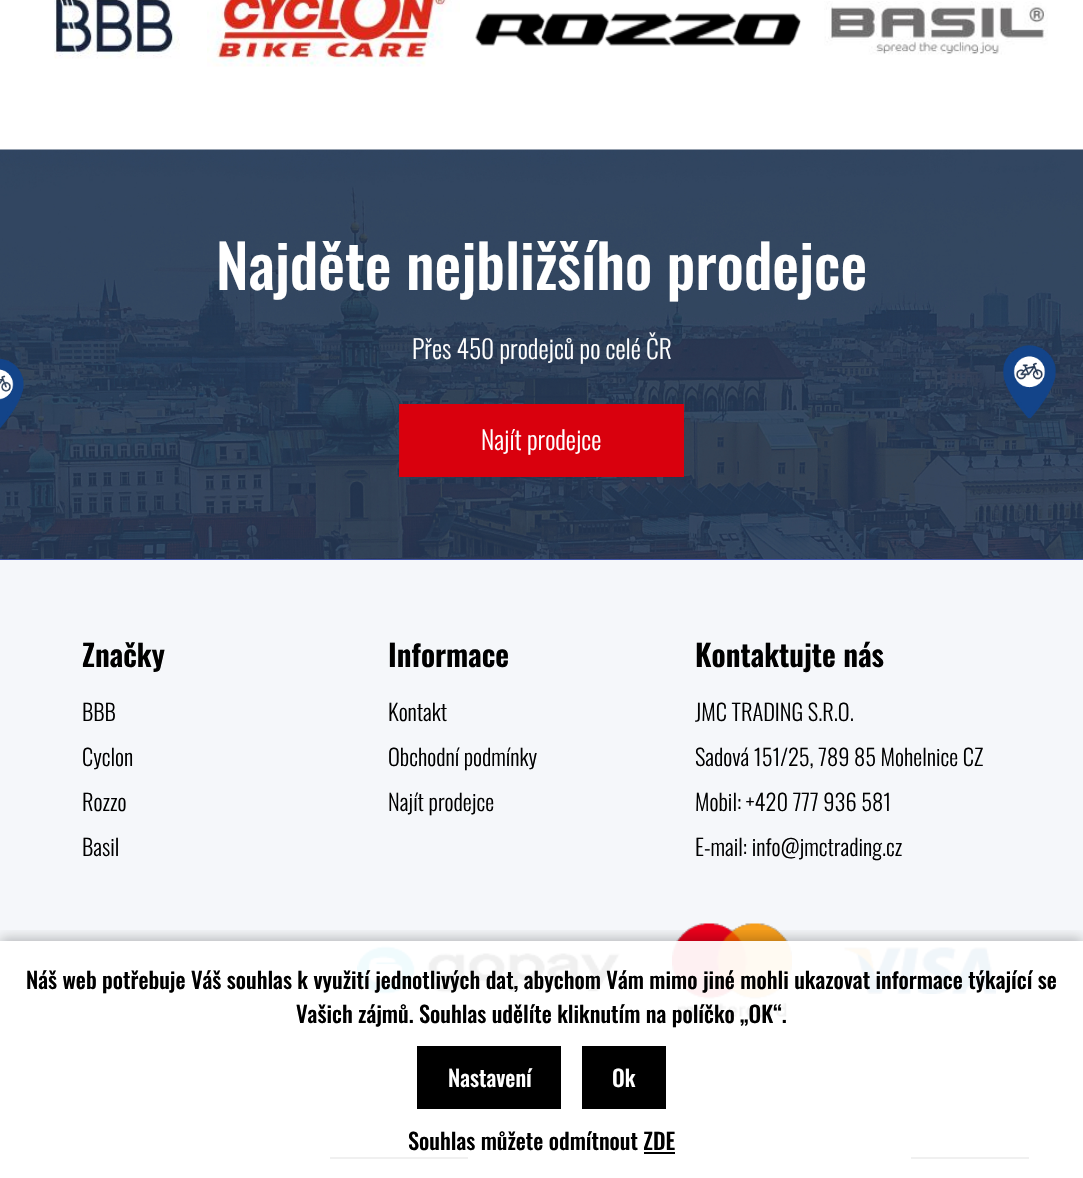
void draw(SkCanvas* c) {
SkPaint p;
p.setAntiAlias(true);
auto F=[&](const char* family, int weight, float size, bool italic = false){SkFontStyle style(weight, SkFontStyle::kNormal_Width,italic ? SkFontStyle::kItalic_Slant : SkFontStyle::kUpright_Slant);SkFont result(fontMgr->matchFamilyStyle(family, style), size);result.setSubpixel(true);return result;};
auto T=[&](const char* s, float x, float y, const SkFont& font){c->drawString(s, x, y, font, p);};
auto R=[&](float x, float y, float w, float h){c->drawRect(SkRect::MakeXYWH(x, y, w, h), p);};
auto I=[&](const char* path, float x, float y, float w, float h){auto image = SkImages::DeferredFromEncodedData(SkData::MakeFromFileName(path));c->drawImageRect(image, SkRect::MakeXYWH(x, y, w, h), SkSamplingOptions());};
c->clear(0xffffffff);
I("1.png",54,0,126,59);
I("2.png",207,0,253,67);
I("3.png",475,13,326,33);
I("4.png",824,1,224,54);
p.setColor(0xff4154a6);
R(0,559,1083,1);
I("5.png",0,149,1083,410);
auto f1 = F("Oswald",500,60);
p.setColor(0xffffffff);
T("Najděte nejbližšího prodejce",216,290,f1);
auto f2 = F("Oswald",300,25.5);
T("Přes 450 prodejců po celé ČR",412,359,f2);
p.setColor(0xffd9000d);
R(399,404,285,73);
p.setColor(0xffffffff);
T("Najít prodejce",481,450,f2);
p.setColor(0xfff5f7fa);
R(0,560,1083,547);
auto f3 = F("Oswald",600,30);
p.setColor(0xff000000);
T("Značky",82,667,f3);
auto f4 = F("Oswald",300,22.5);
T("BBB",82,721,f4);
T("Cyclon",82,766,f4);
T("Rozzo",82,811,f4);
T("Basil",82,856,f4);
T("Informace",388,667,f3);
T("Kontakt",388,721,f4);
T("Obchodní podmínky",388,766,f4);
T("Najít prodejce",388,811,f4);
T("Kontaktujte nás",695,667,f3);
T("JMC TRADING S.R.O.",695,721,f4);
T("Sadová 151/25, 789 85 Mohelnice CZ",695,766,f4);
T("Mobil: +420 777 936 581",695,811,f4);
T("E-mail: info@jmctrading.cz",695,856,f4);
I("6.png",357,945,263,50);
I("7.png",672,923,120,94);
I("8.png",844,947,152,47);
R(330,1157,138,2);
R(911,1157,118,2);
c->save();
c->clipRect(SkRect::MakeXYWH(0,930,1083,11));
p.setColor(0x40000000);
p.setMaskFilter(SkMaskFilter::MakeBlur(kNormal_SkBlurStyle, 6));
c->drawRect(SkRect::MakeXYWH(0,938,1083,238),p);
p.setMaskFilter(nullptr);
c->restore();
p.setColor(0xf0ffffff);
R(0,941,1083,218);
auto f5 = F("Oswald",500,22.5);
p.setColor(0xff000000);
T("Náš web potřebuje Váš souhlas k využití jednotlivých dat, abychom Vám mimo jiné mohli ukazovat informace týkající se",26,989,f5);
T("Vašich zájmů. Souhlas udělíte kliknutím na políčko „OK“.",296,1023,f5);
R(417,1046,144,63);
p.setColor(0xffffffff);
T("Nastavení",448,1087,f5);
p.setColor(0xff000000);
R(582,1046,84,63);
p.setColor(0xffffffff);
T("Ok",612,1087,f5);
p.setColor(0xff000000);
T("Souhlas můžete odmítnout ZDE",408,1150,f5);
R(644,1152,31,2);
}
